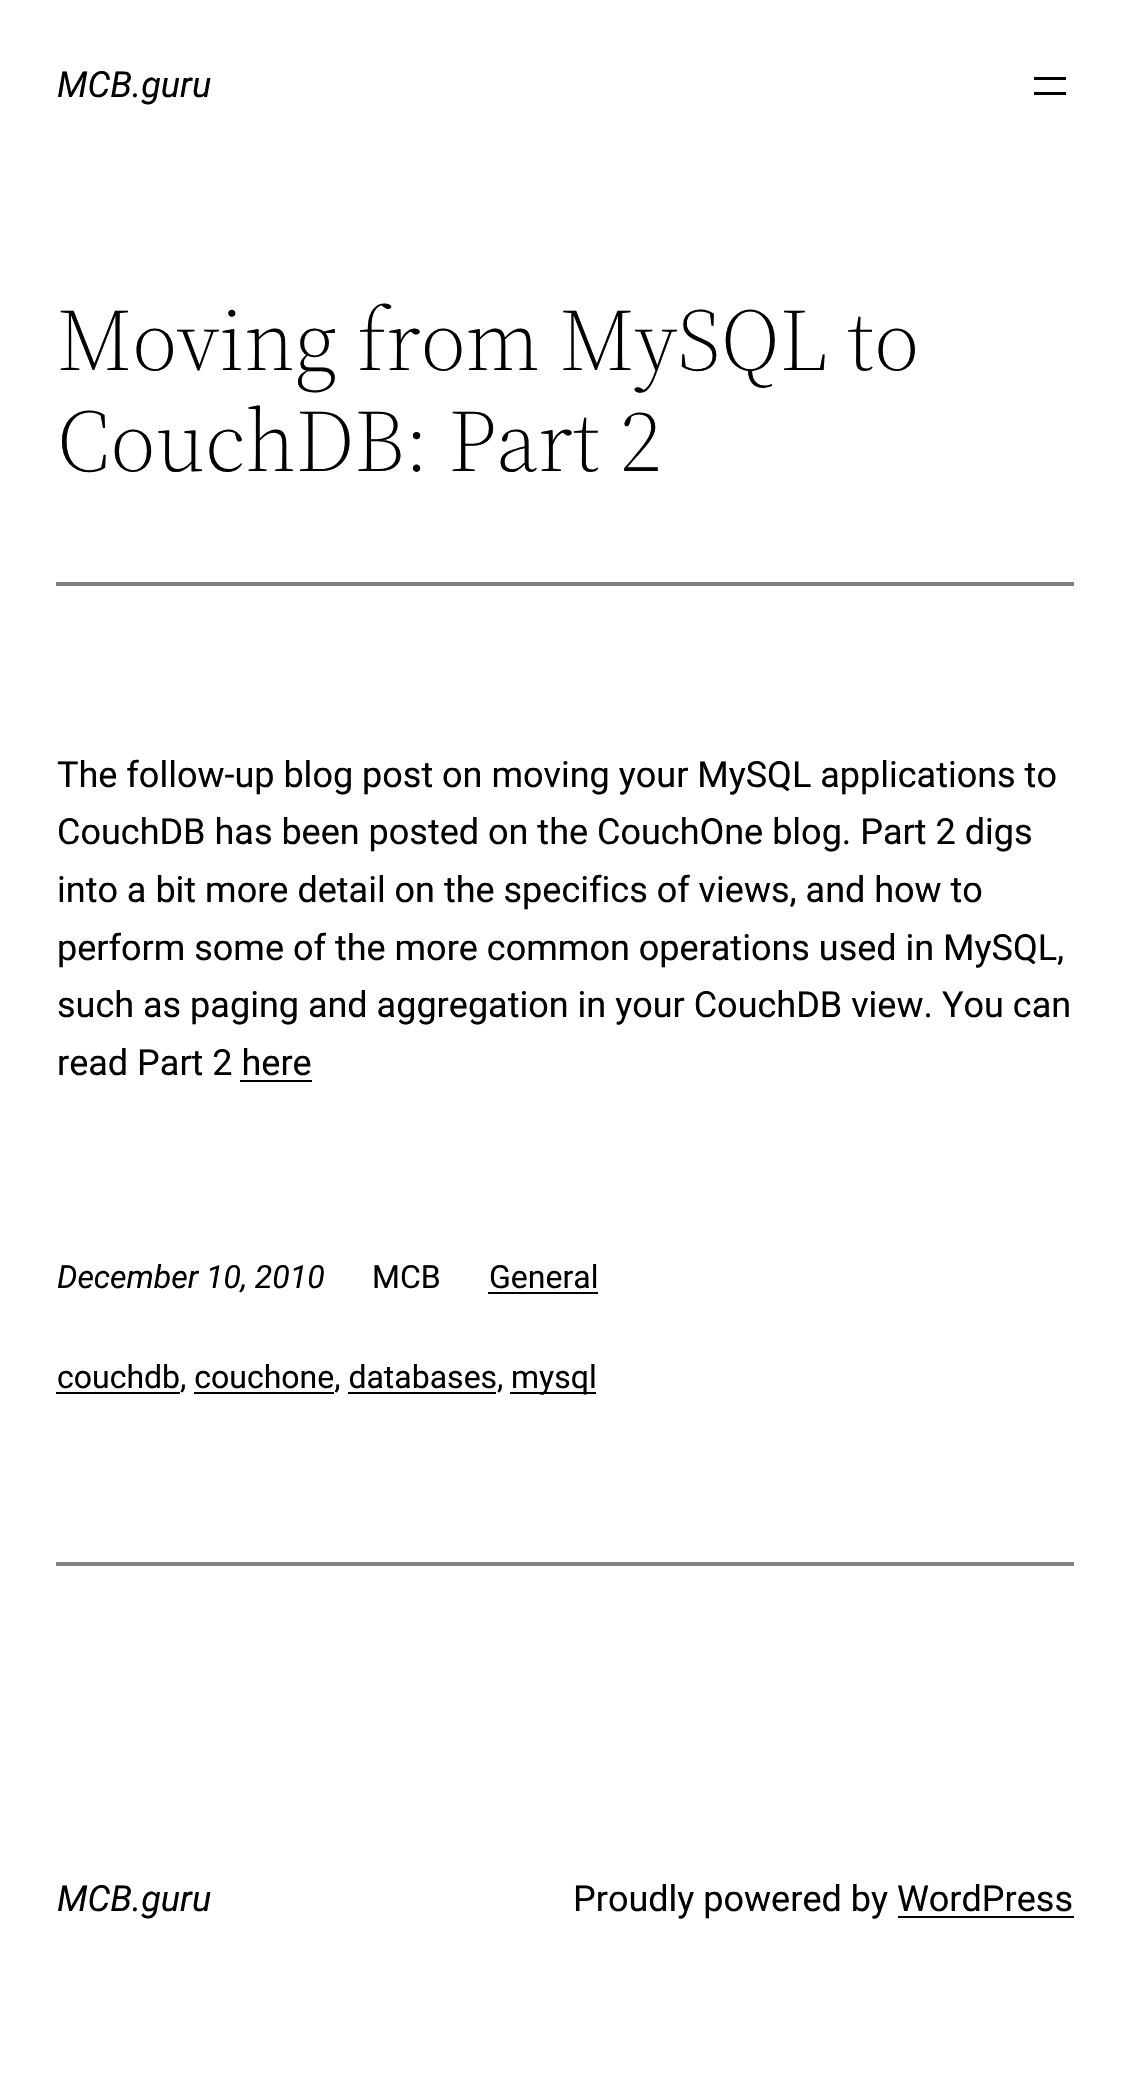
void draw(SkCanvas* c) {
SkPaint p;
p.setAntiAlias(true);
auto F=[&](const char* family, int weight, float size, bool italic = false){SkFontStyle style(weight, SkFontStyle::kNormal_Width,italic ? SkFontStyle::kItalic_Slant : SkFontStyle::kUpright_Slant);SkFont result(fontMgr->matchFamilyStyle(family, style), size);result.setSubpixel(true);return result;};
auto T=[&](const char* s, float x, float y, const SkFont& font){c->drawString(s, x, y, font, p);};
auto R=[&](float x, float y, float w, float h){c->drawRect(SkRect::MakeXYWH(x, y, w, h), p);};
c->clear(0xffffffff);
auto f1 = F("Roboto",400,36,true);
p.setColor(0xff000000);
T("MCB.guru",57,97,f1);
R(1034,77,32,3);
R(1034,92,32,3);
auto f2 = F("Source Serif 4",300,88);
T("Moving from MySQL to",57,370,f2);
T("CouchDB: Part 2",57,471,f2);
p.setColor(0xff808080);
R(56,582,1018,4);
auto f3 = F("Roboto",400,36);
p.setColor(0xff000000);
T("The follow-up blog post on moving your MySQL applications to",57,787,f3);
T("CouchDB has been posted on the CouchOne blog. Part 2 digs",57,844,f3);
T("into a bit more detail on the specifics of views, and how to",57,902,f3);
T("perform some of the more common operations used in MySQL,",57,960,f3);
T("such as paging and aggregation in your CouchDB view. You can",57,1017,f3);
T("read Part 2 here",57,1075,f3);
R(240,1080,72,2);
auto f4 = F("Roboto",400,32,true);
T("December 10, 2010",57,1288,f4);
auto f5 = F("Roboto",400,32);
T("MCB",372,1288,f5);
T("General",489,1288,f5);
R(488,1292,110,2);
R(56,1392,124,2);
T("couchdb, couchone, databases,",57,1388,f5);
R(510,1392,86,2);
T("mysql",511,1388,f5);
R(194,1392,140,2);
R(348,1392,148,2);
p.setColor(0xff808080);
R(56,1562,1018,4);
p.setColor(0xff000000);
T("MCB.guru",57,1911,f1);
T("Proudly powered by WordPress",573,1911,f3);
R(898,1916,176,2);
}
